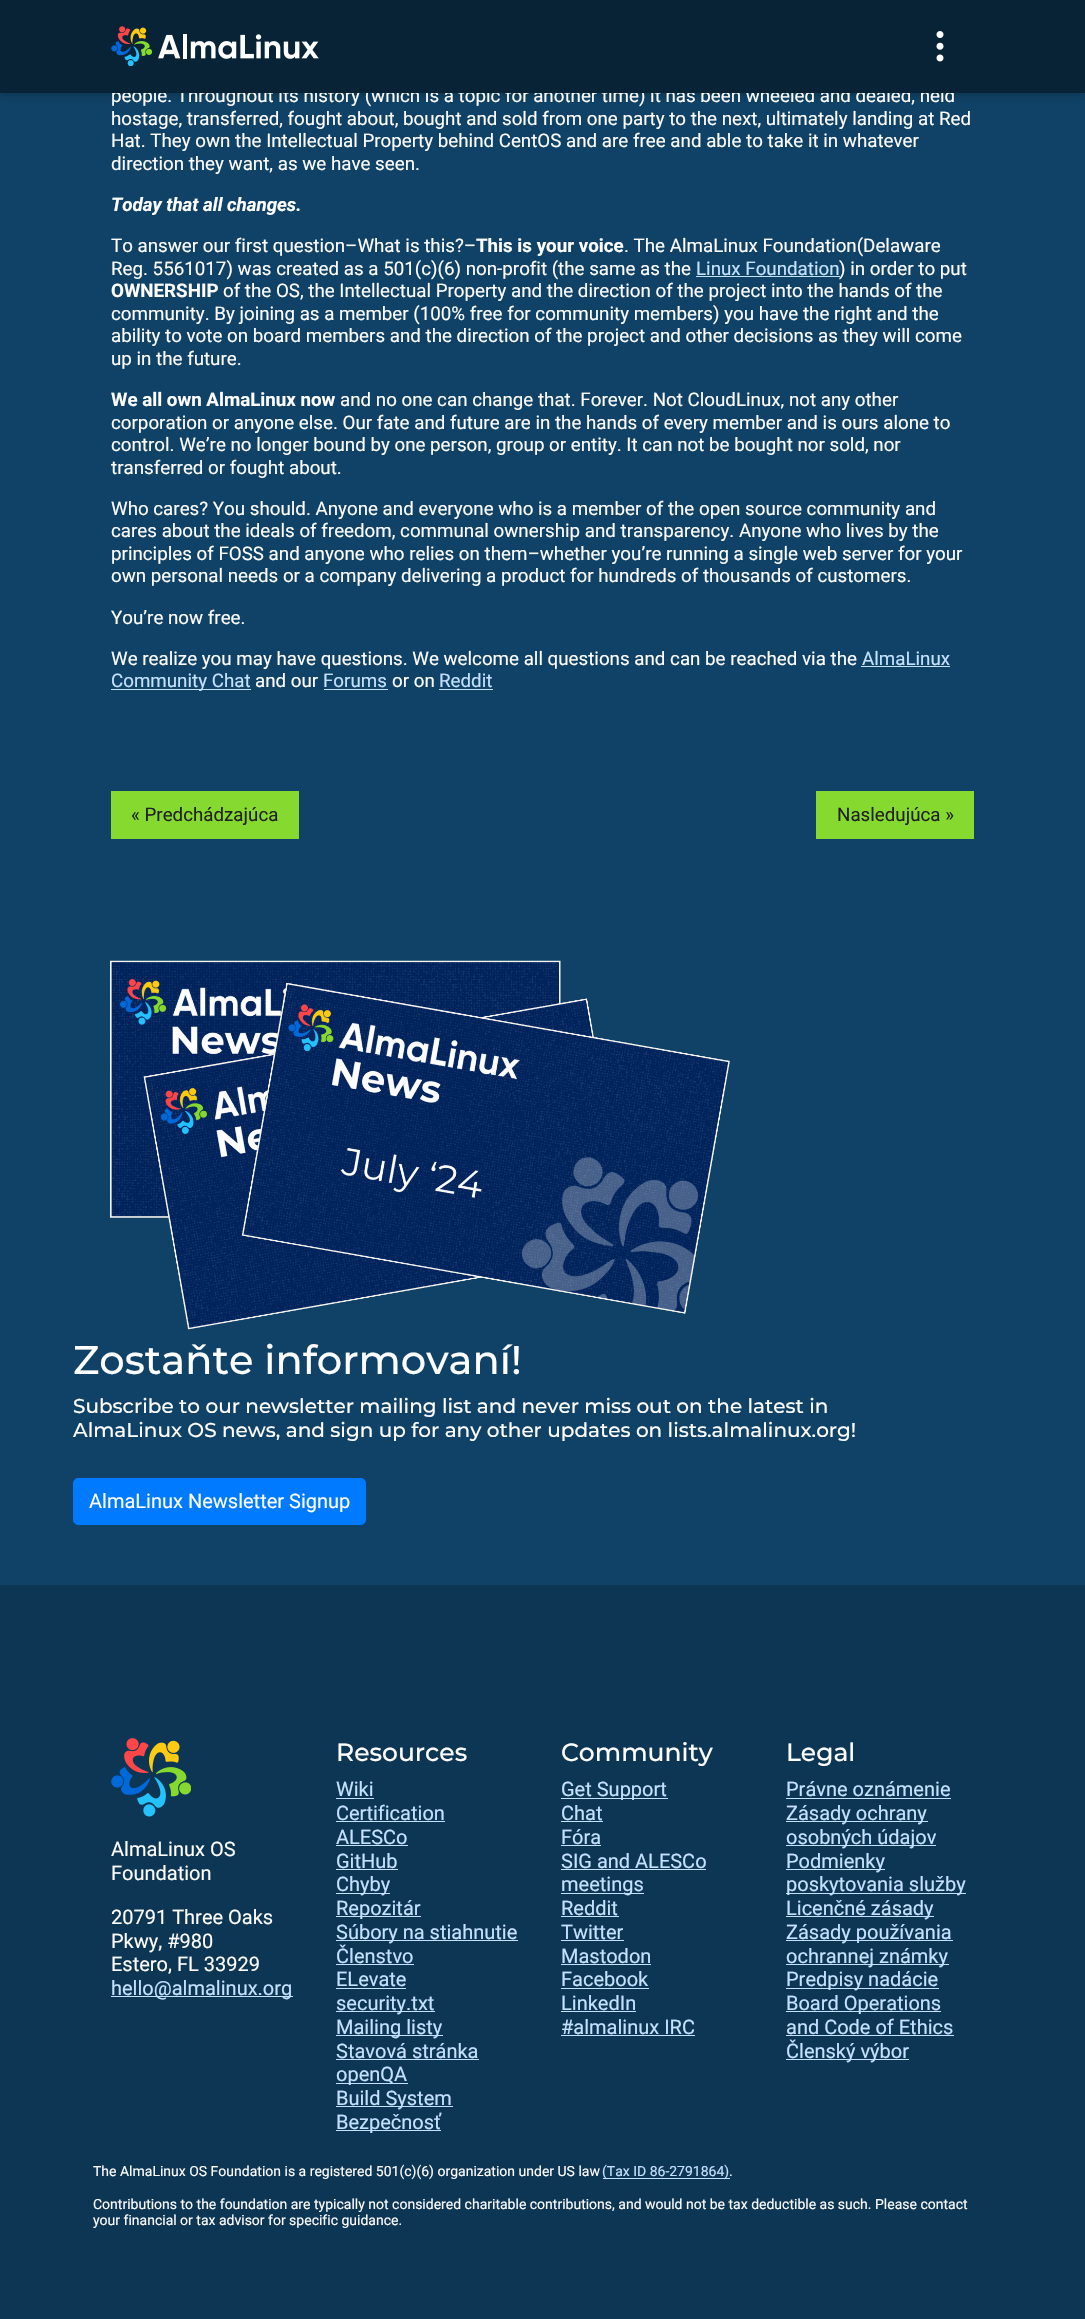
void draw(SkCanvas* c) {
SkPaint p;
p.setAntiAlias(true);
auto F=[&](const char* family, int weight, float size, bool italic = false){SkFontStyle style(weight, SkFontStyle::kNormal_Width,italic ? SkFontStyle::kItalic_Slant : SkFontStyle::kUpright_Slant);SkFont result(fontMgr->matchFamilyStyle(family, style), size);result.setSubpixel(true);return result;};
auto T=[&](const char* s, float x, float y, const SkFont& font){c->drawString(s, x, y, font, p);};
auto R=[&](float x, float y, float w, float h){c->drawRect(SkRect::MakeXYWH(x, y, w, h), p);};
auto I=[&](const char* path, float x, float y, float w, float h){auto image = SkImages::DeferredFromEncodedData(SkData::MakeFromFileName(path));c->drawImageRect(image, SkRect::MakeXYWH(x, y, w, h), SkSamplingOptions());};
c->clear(0xff0f4266);
p.setColor(0x1a000000);
p.setMaskFilter(SkMaskFilter::MakeBlur(kNormal_SkBlurStyle, 5));
c->drawRect(SkRect::MakeXYWH(0,1,1085,93),p);
p.setMaskFilter(nullptr);
p.setColor(0x0f000000);
p.setMaskFilter(SkMaskFilter::MakeBlur(kNormal_SkBlurStyle, 2));
c->drawRect(SkRect::MakeXYWH(3,6,1080,88),p);
p.setMaskFilter(nullptr);
p.setColor(0x12000000);
p.setMaskFilter(SkMaskFilter::MakeBlur(kNormal_SkBlurStyle, 2.5));
c->drawRect(SkRect::MakeXYWH(0,4,1085,92),p);
p.setMaskFilter(nullptr);
auto f1 = F("Roboto",400,18.75);
p.setColor(0xfffefefe);
T("people. Throughout its history (which is a topic for another time) it has been wheeled and dealed, held",111,102,f1);
p.setColor(0xff082336);
R(0,0,1085,93);
I("1.png",111,26,208,40);
I("2.png",936,31,8,31);
p.setColor(0xfffefefe);
T("hostage, transferred, fought about, bought and sold from one party to the next, ultimately landing at Red",111,125,f1);
T("Hat. They own the Intellectual Property behind CentOS and are free and able to take it in whatever",111,147,f1);
T("direction they want, as we have seen.",111,170,f1);
auto f2 = F("Roboto",700,18.75,true);
T("Today that all changes.",111,211,f2);
T("To answer our first question–What is this?–",111,252,f1);
auto f3 = F("Roboto",700,18.75);
T("This is your voice",476,252,f3);
T(". The AlmaLinux Foundation(Delaware",624,252,f1);
T("Reg. 5561017) was created as a 501(c)(6) non-profit (the same as the",111,275,f1);
p.setColor(0xffc4e1ff);
T("Linux Foundation",696,275,f1);
R(696,276,144,1);
p.setColor(0xfffefefe);
T(") in order to put",839,275,f1);
T("OWNERSHIP",111,297,f3);
T("of the OS, the Intellectual Property and the direction of the project into the hands of the",223,297,f1);
T("community. By joining as a member (100% free for community members) you have the right and the",111,320,f1);
T("ability to vote on board members and the direction of the project and other decisions as they will come",111,342,f1);
T("up in the future.",111,365,f1);
T("We all own AlmaLinux now",111,406,f3);
T("and no one can change that. Forever. Not CloudLinux, not any other",340,406,f1);
T("corporation or anyone else. Our fate and future are in the hands of every member and is ours alone to",111,429,f1);
T("control. We’re no longer bound by one person, group or entity. It can not be bought nor sold, nor",111,451,f1);
T("transferred or fought about.",111,474,f1);
T("Who cares? You should. Anyone and everyone who is a member of the open source community and",111,515,f1);
T("cares about the ideals of freedom, communal ownership and transparency. Anyone who lives by the",111,537,f1);
T("principles of FOSS and anyone who relies on them–whether you’re running a single web server for your",111,560,f1);
T("own personal needs or a company delivering a product for hundreds of thousands of customers.",111,582,f1);
T("You’re now free.",111,624,f1);
T("We realize you may have questions. We welcome all questions and can be reached via the",111,665,f1);
p.setColor(0xffc4e1ff);
T("AlmaLinux",862,665,f1);
R(861,666,89,1);
R(111,689,140,1);
T("Community Chat",111,687,f1);
p.setColor(0xfffefefe);
T("and our",255,687,f1);
p.setColor(0xffc4e1ff);
T("Forums",323,687,f1);
R(324,689,64,1);
p.setColor(0xfffefefe);
T("or on",392,687,f1);
p.setColor(0xffc4e1ff);
T("Reddit",439,687,f1);
R(439,689,54,1);
p.setColor(0xff86da2f);
R(111,791,188,48);
p.setColor(0xff222222);
T("« Predchádzajúca",131,821,f1);
p.setColor(0xff86da2f);
R(816,791,158,48);
p.setColor(0xff222222);
T("Nasledujúca »",837,821,f1);
I("3.png",110,960,620,370);
auto f4 = F("Montserrat",500,40);
p.setColor(0xfffefefe);
T("Zostaňte informovaní!",73,1374,f4);
auto f5 = F("Montserrat",500,20);
T("Subscribe to our newsletter mailing list and never miss out on the latest in",73,1413,f5);
T("AlmaLinux OS news, and sign up for any other updates on lists.almalinux.org!",73,1437,f5);
p.setColor(0xff007bff);
c->drawRoundRect(SkRect::MakeXYWH(73.5,1478.5,292,46),4.5,4.5,p);
p.setStroke(true);
p.setStrokeWidth(1);
c->drawRoundRect(SkRect::MakeXYWH(73.5,1478.5,292,46),4.5,4.5,p);
auto f6 = F("Roboto",400,20);
p.setStroke(false);
p.setColor(0xfffefefe);
T("AlmaLinux Newsletter Signup",89,1508,f6);
p.setColor(0xff0d3654);
R(0,1585,1085,734);
I("4.png",111,1738,80,79);
p.setColor(0xfffefefe);
T("AlmaLinux OS",111,1856,f6);
T("Foundation",111,1880,f6);
T("20791 Three Oaks",111,1924,f6);
T("Pkwy, #980",111,1948,f6);
T("Estero, FL 33929",111,1971,f6);
p.setColor(0xffc4e1ff);
R(111,1996,182,1);
T("hello@almalinux.org",111,1995,f6);
auto f7 = F("Montserrat",500,25);
p.setColor(0xfffefefe);
T("Resources",336,1761,f7);
p.setColor(0xffc4e1ff);
T("Wiki",336,1796,f6);
R(336,1798,38,1);
T("Certification",336,1820,f6);
R(336,1821,109,1);
T("ALESCo",336,1844,f6);
R(336,1845,72,1);
T("GitHub",336,1868,f6);
R(336,1869,62,1);
R(336,1893,54,1);
T("Chyby",336,1891,f6);
R(336,1916,85,1);
T("Repozitár",336,1915,f6);
R(336,1940,182,1);
T("Súbory na stiahnutie",336,1939,f6);
T("Členstvo",336,1963,f6);
R(336,1964,78,1);
T("ELevate",336,1986,f6);
R(336,1988,70,1);
R(336,2011,99,1);
T("security.txt",336,2010,f6);
R(336,2035,107,1);
T("Mailing listy",336,2034,f6);
T("Stavová stránka",336,2058,f6);
R(336,2059,143,1);
R(336,2083,72,1);
T("openQA",336,2081,f6);
R(336,2106,117,1);
T("Build System",336,2105,f6);
R(336,2130,105,1);
T("Bezpečnosť",336,2129,f6);
p.setColor(0xfffefefe);
T("Community",561,1761,f7);
p.setColor(0xffc4e1ff);
R(561,1798,107,1);
T("Get Support",561,1796,f6);
T("Chat",561,1820,f6);
R(561,1821,42,1);
T("Fóra",561,1844,f6);
R(561,1845,40,1);
T("SIG and ALESCo",561,1868,f6);
R(561,1869,145,1);
R(561,1893,83,1);
T("meetings",561,1891,f6);
T("Reddit",561,1915,f6);
R(561,1916,58,1);
T("Twitter",561,1939,f6);
R(561,1940,63,1);
T("Mastodon",561,1963,f6);
R(561,1964,90,1);
T("Facebook",561,1986,f6);
R(561,1988,88,1);
T("LinkedIn",561,2010,f6);
R(561,2011,75,1);
T("#almalinux IRC",561,2034,f6);
R(561,2035,134,1);
p.setColor(0xfffefefe);
T("Legal",786,1761,f7);
p.setColor(0xffc4e1ff);
T("Právne oznámenie",786,1796,f6);
R(786,1798,165,1);
R(786,1821,142,1);
T("Zásady ochrany",786,1820,f6);
R(786,1845,150,1);
T("osobných údajov",786,1844,f6);
R(786,1869,99,1);
T("Podmienky",786,1868,f6);
R(786,1893,180,1);
T("poskytovania služby",786,1891,f6);
R(786,1916,148,1);
T("Licenčné zásady",786,1915,f6);
R(786,1940,167,1);
T("Zásady používania",786,1939,f6);
R(786,1964,163,1);
T("ochrannej známky",786,1963,f6);
R(786,1988,153,1);
T("Predpisy nadácie",786,1986,f6);
R(786,2011,155,1);
T("Board Operations",786,2010,f6);
T("and Code of Ethics",786,2034,f6);
R(786,2035,168,1);
R(786,2059,123,1);
T("Členský výbor",786,2058,f6);
auto f8 = F("Roboto",400,14);
p.setColor(0xfffefefe);
T("The AlmaLinux OS Foundation is a registered 501(c)(6) organization under US law",93,2176,f8);
p.setColor(0xffc4e1ff);
R(603,2178,127,1);
T("(Tax ID 86-2791864)",602,2176,f8);
p.setColor(0xfffefefe);
T(".",729,2176,f8);
T("Contributions to the foundation are typically not considered charitable contributions, and would not be tax deductible as such. Please contact",93,2209,f8);
T("your financial or tax advisor for specific guidance.",93,2225,f8);
}
